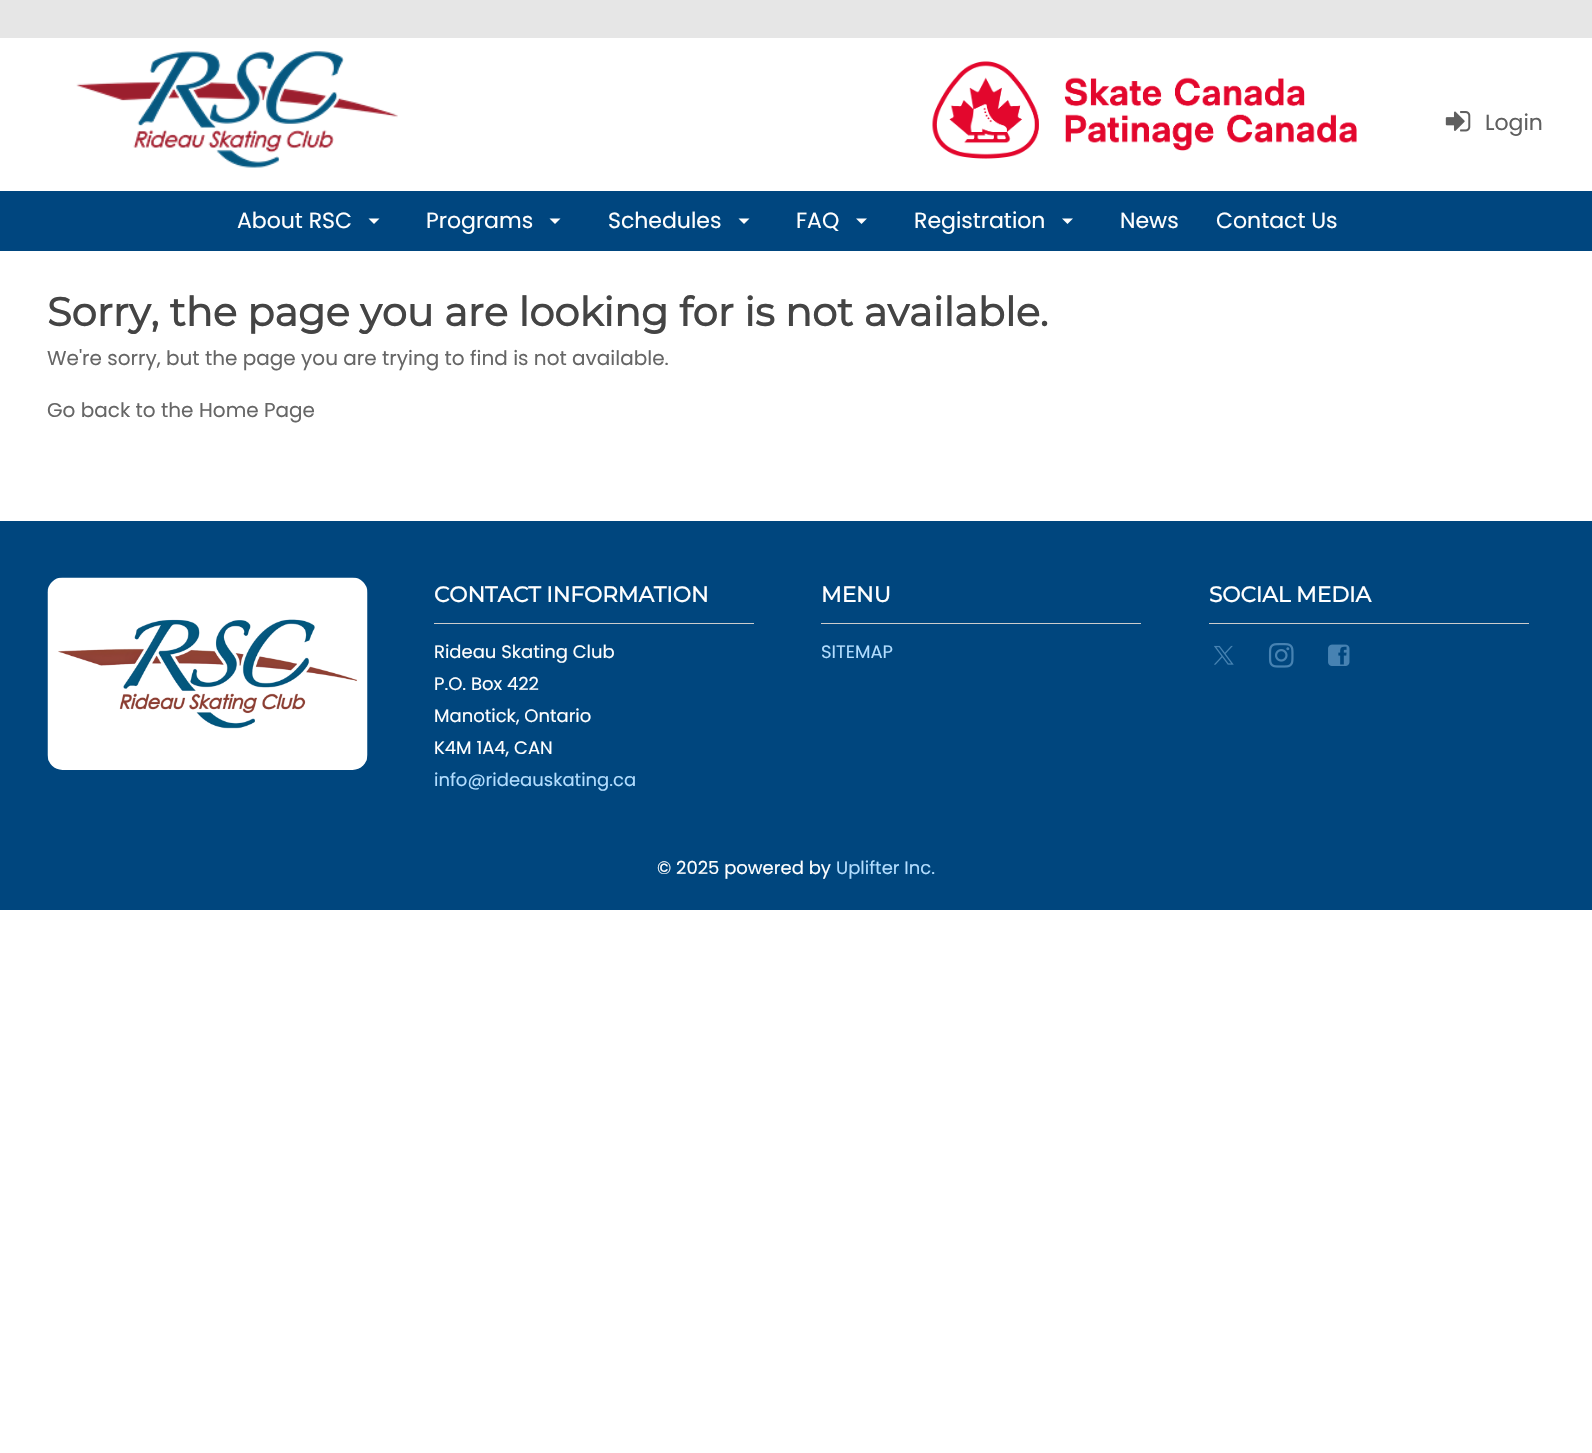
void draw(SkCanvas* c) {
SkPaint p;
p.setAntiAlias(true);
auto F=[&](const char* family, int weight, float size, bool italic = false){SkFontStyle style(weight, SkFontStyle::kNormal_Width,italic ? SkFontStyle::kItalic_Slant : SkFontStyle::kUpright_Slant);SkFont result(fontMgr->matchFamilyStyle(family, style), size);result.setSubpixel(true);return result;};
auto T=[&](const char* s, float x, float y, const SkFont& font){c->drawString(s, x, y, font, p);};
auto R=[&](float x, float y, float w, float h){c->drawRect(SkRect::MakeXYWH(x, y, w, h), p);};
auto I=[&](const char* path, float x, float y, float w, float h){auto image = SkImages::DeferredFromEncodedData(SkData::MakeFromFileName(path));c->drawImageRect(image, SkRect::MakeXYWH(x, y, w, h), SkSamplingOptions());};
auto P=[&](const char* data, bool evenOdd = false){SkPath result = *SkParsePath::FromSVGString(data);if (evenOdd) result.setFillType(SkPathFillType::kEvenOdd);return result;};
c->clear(0xffffffff);
p.setColor(0xffe6e6e6);
R(0,0,1592,38);
I("1.png",76,51,322,117);
I("2.png",932,61,425,98);
I("3.png",1445,111,26,21);
auto f1 = F("Poppins",400,22);
p.setColor(0xff5f5f5f);
T("Login",1485,130,f1);
p.setColor(0xff00467f);
R(0,191,1592,60);
p.setColor(0xffffffff);
T("About RSC",237,228,f1);
c->drawPath(P("M368.5 218.5l5.5 5.5l5.5-5.5z"),p);
T("Programs",426,228,f1);
c->drawPath(P("M549.5 218.5l5.5 5.5l5.5-5.5z"),p);
T("Schedules",608,228,f1);
c->drawPath(P("M738.5 218.5l5.5 5.5l5.5-5.5z"),p);
T("FAQ",796,228,f1);
c->drawPath(P("M856 218.5l5.5 5.5l5.5-5.5z"),p);
T("Registration",914,228,f1);
c->drawPath(P("M1062 218.5l5.5 5.5l5.5-5.5z"),p);
T("News",1120,228,f1);
T("Contact Us",1216,228,f1);
auto f2 = F("Montserrat",700,40);
p.setColor(0xff444444);
T("Sorry, the page you are looking for is not available.",47,326,f2);
auto f3 = F("Poppins",400,20);
p.setColor(0xff666666);
T("We're sorry, but the page you are trying to find is not available.",47,365,f3);
T("Go back to the",47,417,f3);
T("Home Page",199,417,f3);
p.setColor(0xff00467e);
R(0,521,1592,389);
I("4.png",47,577,321,193);
p.setColor(0xffcccccc);
R(434,623,320,1);
auto f4 = F("Montserrat",700,21.6);
p.setColor(0xffffffff);
T("CONTACT INFORMATION",434,602,f4);
auto f5 = F("Poppins",400,18);
T("Rideau Skating Club",434,658,f5);
T("P.O. Box 422",434,690,f5);
T("Manotick, Ontario",434,722,f5);
T("K4M 1A4, CAN",434,754,f5);
p.setColor(0xffb2ddff);
T("info@rideauskating.ca",434,786,f5);
p.setColor(0xffcccccc);
R(821,623,320,1);
p.setColor(0xffffffff);
T("MENU",821,602,f4);
p.setColor(0xffb2ddff);
T("SITEMAP",821,658,f5);
p.setColor(0xffcccccc);
R(1209,623,320,1);
p.setColor(0xffffffff);
T("SOCIAL MEDIA",1209,602,f4);
I("5.png",1214,645,20,20);
I("6.png",1268,643,26,25);
I("7.png",1328,644,22,22);
T("© 2025 powered by",657,874,f5);
p.setColor(0xffb2ddff);
T("Uplifter Inc.",836,874,f5);
}
